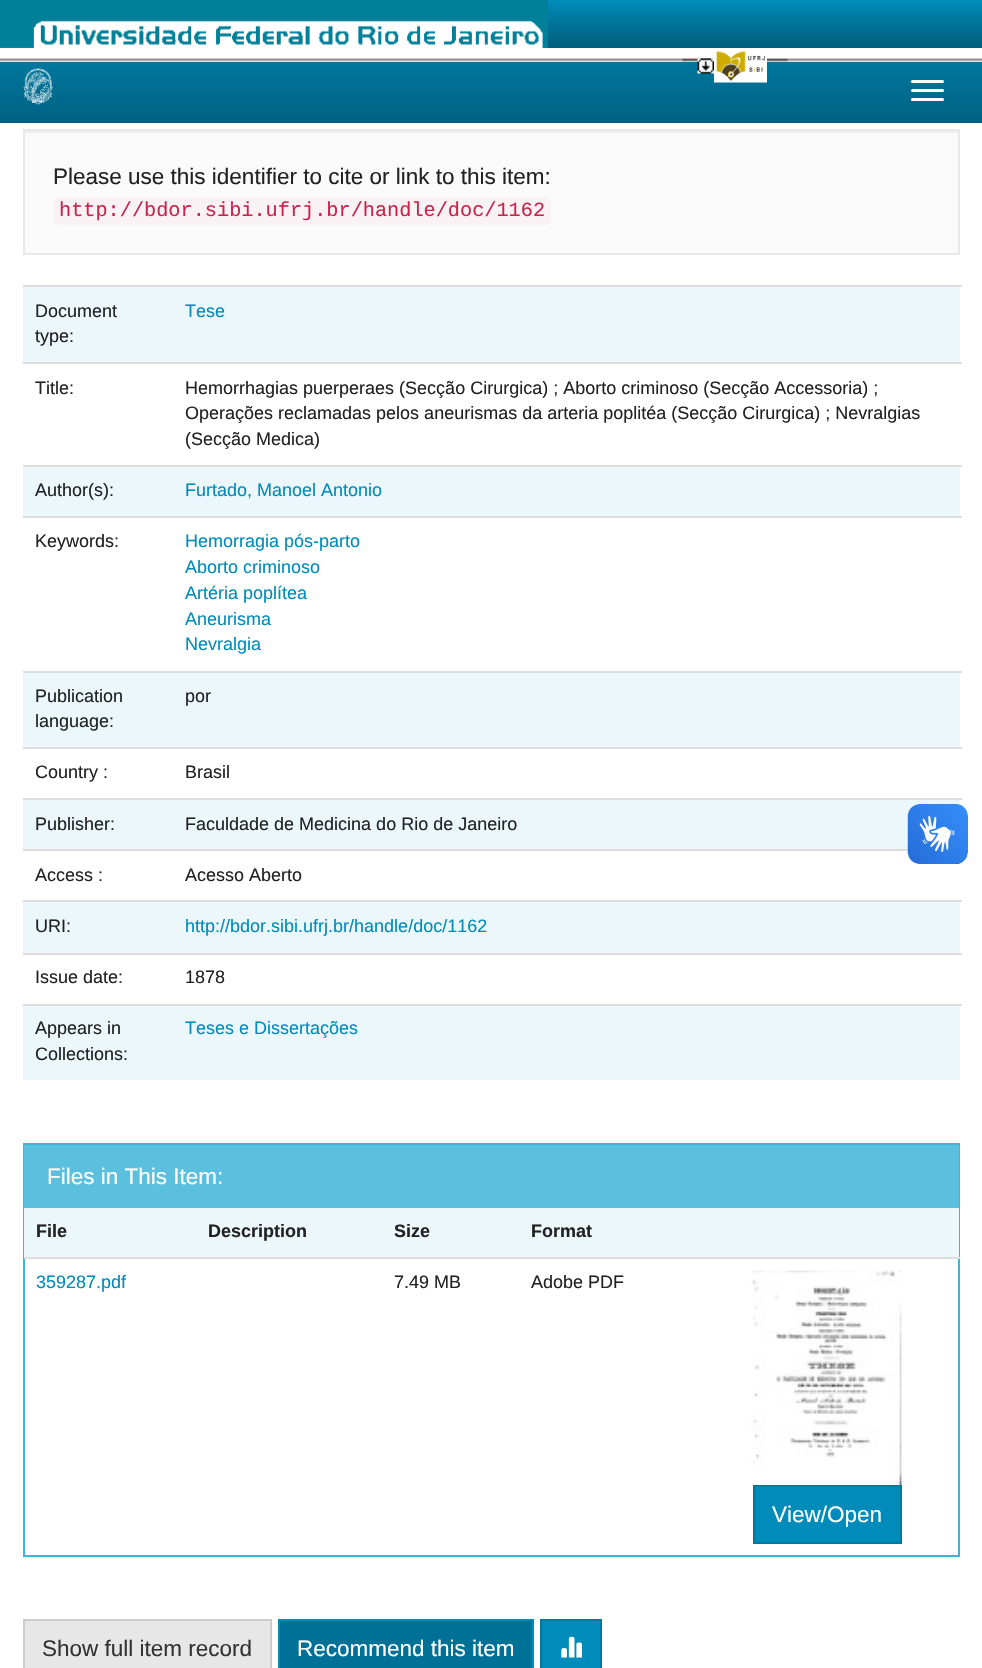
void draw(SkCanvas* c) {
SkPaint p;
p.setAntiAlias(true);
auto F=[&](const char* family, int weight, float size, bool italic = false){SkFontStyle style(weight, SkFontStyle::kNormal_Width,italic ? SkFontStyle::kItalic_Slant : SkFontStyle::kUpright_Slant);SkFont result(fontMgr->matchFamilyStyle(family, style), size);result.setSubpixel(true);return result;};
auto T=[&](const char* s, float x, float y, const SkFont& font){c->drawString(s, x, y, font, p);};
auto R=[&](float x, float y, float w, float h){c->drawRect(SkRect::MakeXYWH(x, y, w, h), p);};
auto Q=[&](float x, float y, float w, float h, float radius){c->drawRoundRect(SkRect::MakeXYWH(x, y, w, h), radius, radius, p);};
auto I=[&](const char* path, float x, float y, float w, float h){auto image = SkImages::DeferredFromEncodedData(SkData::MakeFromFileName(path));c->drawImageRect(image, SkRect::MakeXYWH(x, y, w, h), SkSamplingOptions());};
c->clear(0xffffffff);
{
const SkColor colors[] = {0xff008cba,0xff006282};
const float stops[] = {0,1};
const SkPoint ends[] = {{491,0}, {491,123}};
p.setShader(SkGradientShader::MakeLinear(ends, colors, stops, 2, SkTileMode::kClamp));
p.setAlpha(255);
}
R(0,0,982,123);
{
const SkColor colors[] = {0x00000000,0x4d000000};
const float stops[] = {0,1};
const SkPoint ends[] = {{491,0}, {491,60}};
p.setShader(SkGradientShader::MakeLinear(ends, colors, stops, 2, SkTileMode::kClamp));
p.setAlpha(255);
}
R(548,4,434,44);
I("1.png",0,0,548,48);
p.setShader(nullptr);
p.setColor(0xffffffff);
R(0,48,982,14);
I("2.png",0,58,982,4);
I("3.png",682,58,106,4);
I("4.png",697,58,17,16);
I("5.png",714,51,53,32);
I("6.png",23,68,30,37);
Q(911,80,33,3,1.5);
Q(911,89,33,3,1.5);
Q(911,98,33,3,1.5);
p.setColor(0xfffafafa);
R(25,133,933,120);
p.setColor(0xffeeeeee);
R(24,131,935,2);
p.setStroke(true);
p.setStrokeWidth(2);
p.setColor(0xffe8e8e8);
c->drawRect(SkRect::MakeXYWH(24,130,935,124),p);
auto f1 = F("Liberation Sans",400,22.5);
p.setStroke(false);
p.setColor(0xff222222);
T("Please use this identifier to cite or link to this item:",53,184,f1);
p.setColor(0xfff9f2f4);
Q(53,197,498,28,6);
auto f2 = F("Liberation Mono",400,20.25);
p.setColor(0xffc7254e);
T("http://bdor.sibi.ufrj.br/handle/doc/1162",59,216,f2);
p.setColor(0xffebf7fb);
R(23,287,937,75);
auto f3 = F("Liberation Sans",400,18);
p.setColor(0xff222222);
T("Document",35,317,f3);
T("type:",35,342,f3);
p.setColor(0xffdddddd);
R(23,285,939,2);
p.setColor(0xff008cba);
T("Tese",185,317,f3);
p.setColor(0xff222222);
T("Title:",35,394,f3);
p.setColor(0xffdddddd);
R(23,362,939,2);
p.setColor(0xff222222);
T("Hemorrhagias puerperaes (Secção Cirurgica) ; Aborto criminoso (Secção Accessoria) ;",185,394,f3);
T("Operações reclamadas pelos aneurismas da arteria poplitéa (Secção Cirurgica) ; Nevralgias",185,419,f3);
T("(Secção Medica)",185,445,f3);
p.setColor(0xffebf7fb);
R(23,467,937,49);
p.setColor(0xff222222);
T("Author(s):",35,496,f3);
p.setColor(0xffdddddd);
R(23,465,939,2);
p.setColor(0xff008cba);
T("Furtado, Manoel Antonio",185,496,f3);
p.setColor(0xff222222);
T("Keywords:",35,547,f3);
p.setColor(0xffdddddd);
R(23,516,939,2);
p.setColor(0xff008cba);
T("Hemorragia pós-parto",185,547,f3);
T("Aborto criminoso",185,573,f3);
T("Artéria poplítea",185,599,f3);
T("Aneurisma",185,625,f3);
T("Nevralgia",185,650,f3);
p.setColor(0xffebf7fb);
R(23,673,937,74);
p.setColor(0xff222222);
T("Publication",35,702,f3);
T("language:",35,727,f3);
p.setColor(0xffdddddd);
R(23,671,939,2);
p.setColor(0xff222222);
T("por",185,702,f3);
T("Country :",35,778,f3);
p.setColor(0xffdddddd);
R(23,747,939,2);
p.setColor(0xff222222);
T("Brasil",185,778,f3);
p.setColor(0xffebf7fb);
R(23,800,937,49);
p.setColor(0xff222222);
T("Publisher:",35,830,f3);
p.setColor(0xffdddddd);
R(23,798,939,2);
p.setColor(0xff222222);
T("Faculdade de Medicina do Rio de Janeiro",185,830,f3);
T("Access :",35,881,f3);
p.setColor(0xffdddddd);
R(23,849,885,2);
p.setColor(0xff222222);
T("Acesso Aberto",185,881,f3);
p.setColor(0xffebf7fb);
R(23,902,937,51);
p.setColor(0xff222222);
T("URI:",35,932,f3);
p.setColor(0xffdddddd);
R(23,900,939,2);
p.setColor(0xff008cba);
T("http://bdor.sibi.ufrj.br/handle/doc/1162",185,932,f3);
p.setColor(0xff222222);
T("Issue date:",35,983,f3);
p.setColor(0xffdddddd);
R(23,953,939,2);
p.setColor(0xff222222);
T("1878",185,983,f3);
p.setColor(0xffebf7fb);
R(23,1006,937,74);
p.setColor(0xff222222);
T("Appears in",35,1034,f3);
T("Collections:",35,1060,f3);
p.setColor(0xffdddddd);
R(23,1004,939,2);
p.setColor(0xff008cba);
T("Teses e Dissertações",185,1034,f3);
c->save();
c->clipRect(SkRect::MakeXYWH(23,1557,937,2));
p.setColor(0x0d000000);
p.setMaskFilter(SkMaskFilter::MakeBlur(kNormal_SkBlurStyle, 1));
c->drawRect(SkRect::MakeXYWH(23,1145,937,414),p);
p.setMaskFilter(nullptr);
c->restore();
p.setStroke(true);
p.setColor(0xff3db5d8);
c->drawRect(SkRect::MakeXYWH(24,1144,935,412),p);
p.setStroke(false);
p.setColor(0xff5bc0de);
R(24,1145,935,63);
p.setColor(0xffffffff);
T("Files in This Item:",47,1184,f1);
p.setColor(0xffebf7fb);
R(24,1208,935,49);
auto f4 = F("Liberation Sans",700,18);
p.setColor(0xff222222);
T("File",36,1237,f4);
T("Description",208,1237,f4);
T("Size",394,1237,f4);
T("Format",531,1237,f4);
p.setColor(0xff008cba);
T("359287.pdf",36,1288,f3);
p.setColor(0xff222222);
T("7.49 MB",394,1288,f3);
T("Adobe PDF",531,1288,f3);
p.setColor(0xffdddddd);
R(24,1257,936,2);
I("7.png",751,1270,151,215);
p.setColor(0xff008cba);
c->drawRect(SkRect::MakeXYWH(754,1486,147,57),p);
p.setStroke(true);
p.setColor(0xff0079a1);
c->drawRect(SkRect::MakeXYWH(754,1486,147,57),p);
p.setStroke(false);
p.setColor(0xffffffff);
T("View/Open",772,1522,f1);
p.setColor(0xffe7e7e7);
c->drawRect(SkRect::MakeXYWH(24,1620,247,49),p);
p.setStroke(true);
p.setColor(0xffcccccc);
c->drawRect(SkRect::MakeXYWH(24,1620,247,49),p);
p.setStroke(false);
p.setColor(0xff333333);
T("Show full item record",42,1656,f1);
p.setColor(0xff007196);
c->drawRect(SkRect::MakeXYWH(279,1620,254,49),p);
p.setStroke(true);
p.setColor(0xff008cba);
c->drawRect(SkRect::MakeXYWH(279,1620,254,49),p);
p.setStroke(false);
p.setColor(0xffffffff);
T("Recommend this item",297,1656,f1);
p.setColor(0xff008cba);
c->drawRect(SkRect::MakeXYWH(541,1620,60,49),p);
p.setStroke(true);
p.setColor(0xff0079a1);
c->drawRect(SkRect::MakeXYWH(541,1620,60,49),p);
I("8.png",561,1636,21,22);
I("9.png",907,804,61,60);
I("10.png",908,804,60,60);
}
